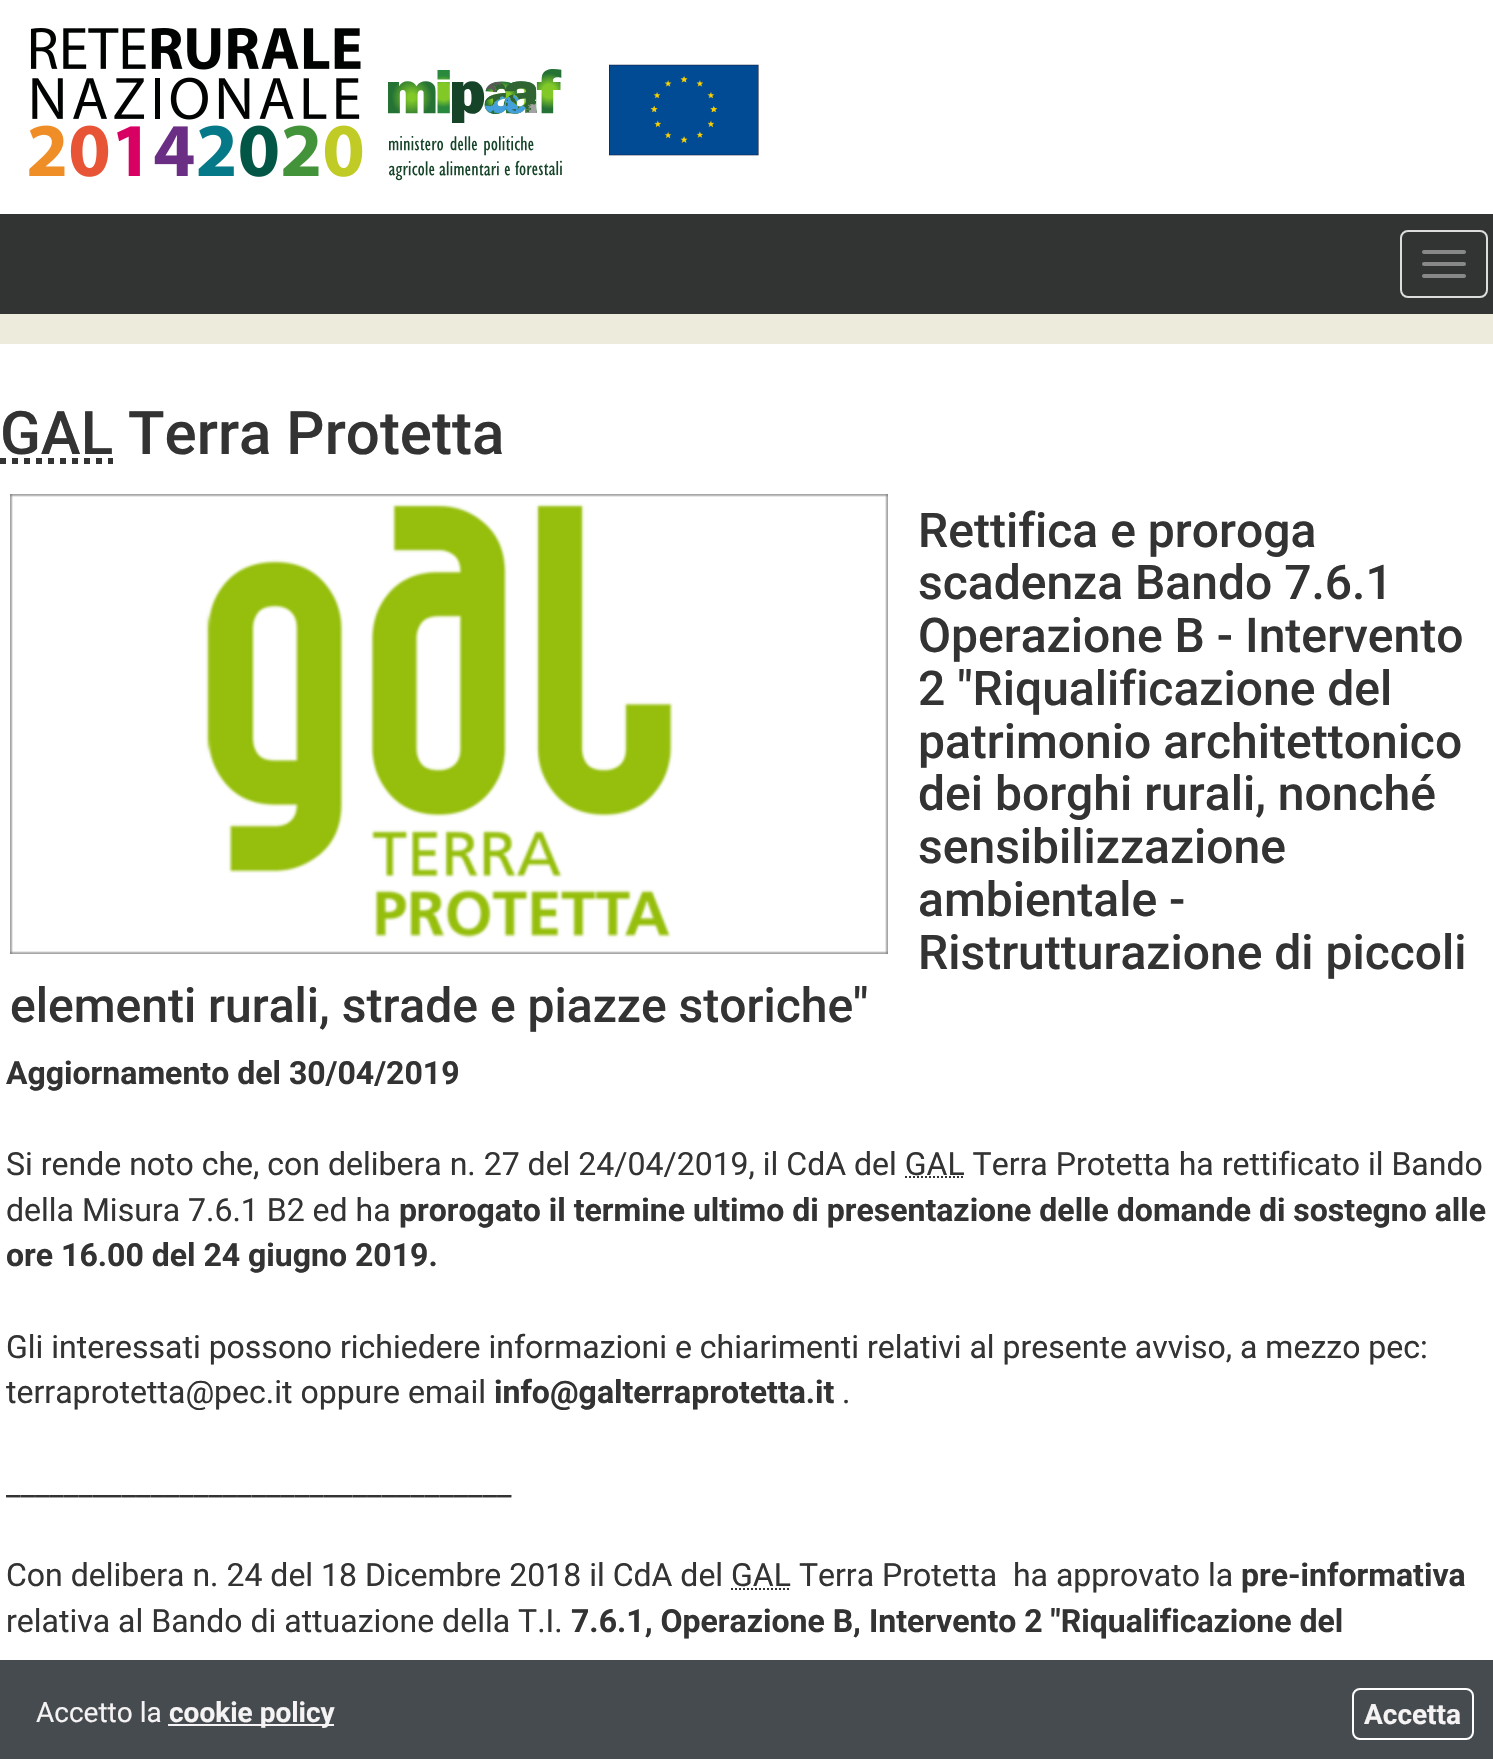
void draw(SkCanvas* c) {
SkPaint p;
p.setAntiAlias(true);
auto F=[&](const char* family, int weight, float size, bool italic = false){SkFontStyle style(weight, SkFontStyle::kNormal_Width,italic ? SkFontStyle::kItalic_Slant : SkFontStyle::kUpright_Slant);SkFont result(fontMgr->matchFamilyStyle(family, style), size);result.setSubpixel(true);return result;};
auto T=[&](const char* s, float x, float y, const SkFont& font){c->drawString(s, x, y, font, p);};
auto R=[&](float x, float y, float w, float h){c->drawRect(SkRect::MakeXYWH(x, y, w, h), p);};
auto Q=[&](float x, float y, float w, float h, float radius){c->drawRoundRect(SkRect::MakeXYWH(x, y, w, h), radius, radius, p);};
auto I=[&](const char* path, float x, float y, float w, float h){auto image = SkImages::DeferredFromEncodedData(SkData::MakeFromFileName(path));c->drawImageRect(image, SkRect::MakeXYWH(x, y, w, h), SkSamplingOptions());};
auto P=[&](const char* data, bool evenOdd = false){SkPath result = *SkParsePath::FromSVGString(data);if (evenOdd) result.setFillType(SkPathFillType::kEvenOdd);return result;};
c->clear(0xffffffff);
I("1.png",29,28,334,149);
I("2.png",388,69,174,112);
I("3.png",609,64,150,92);
p.setColor(0xff323433);
R(0,214,1493,100);
p.setStroke(true);
p.setStrokeWidth(2);
p.setColor(0xffdddddd);
c->drawRoundRect(SkRect::MakeXYWH(1401,231,86,66),7,7,p);
p.setStroke(false);
p.setColor(0xff888888);
Q(1422,250,44,4,2);
Q(1422,262,44,4,2);
Q(1422,274,44,4,2);
p.setColor(0xffedebdb);
R(0,314,1493,30);
auto f1 = F("Roboto",500,60);
p.setColor(0xff333333);
T("GAL Terra Protetta",0,454,f1);
p.setStroke(true);
p.setStrokeWidth(6);
p.setPathEffect(SkDashPathEffect::Make({{6,6}}, 0));
c->drawPath(P("M0 461h113"),p);
p.setPathEffect(nullptr);
I("4.png",10,494,878,460);
auto f2 = F("Roboto",500,48);
p.setStroke(false);
T("Rettifica e proroga",918,547,f2);
T("scadenza Bando 7.6.1",918,599,f2);
T("Operazione B - Intervento",918,652,f2);
T("2 \"Riqualificazione del",918,705,f2);
T("patrimonio architettonico",918,758,f2);
T("dei borghi rurali, nonché",918,810,f2);
T("sensibilizzazione",918,863,f2);
T("ambientale -",918,916,f2);
T("Ristrutturazione di piccoli",918,969,f2);
T("elementi rurali, strade e piazze storiche\"",10,1022,f2);
auto f3 = F("Roboto",700,32);
T("Aggiornamento del 30/04/2019",6,1084,f3);
auto f4 = F("Roboto",400,32);
T("Si rende noto che, con delibera n. 27 del 24/04/2019, il CdA del GAL Terra Protetta ha rettificato il Bando",6,1175,f4);
p.setStroke(true);
p.setStrokeWidth(2);
p.setPathEffect(SkDashPathEffect::Make({{2,2}}, 0));
c->drawPath(P("M905 1177h59.5"),p);
p.setPathEffect(nullptr);
p.setStroke(false);
T("della Misura 7.6.1 B2 ed ha",6,1221,f4);
T("prorogato il termine ultimo di presentazione delle domande di sostegno alle",399,1221,f3);
T("ore 16.00 del 24 giugno 2019.",6,1266,f3);
T("Gli interessati possono richiedere informazioni e chiarimenti relativi al presente avviso, a mezzo pec:",6,1358,f4);
T("terraprotetta@pec.it oppure email",6,1403,f4);
T("info@galterraprotetta.it",494,1403,f3);
T(".",842,1403,f4);
T("___________________________________",6,1495,f4);
T("Con delibera n. 24 del 18 Dicembre 2018 il CdA del GAL Terra Protetta  ha approvato la",6,1586,f4);
T("pre-informativa",1241,1586,f3);
p.setStroke(true);
p.setPathEffect(SkDashPathEffect::Make({{2,2}}, 0));
c->drawPath(P("M731 1589h60"),p);
p.setPathEffect(nullptr);
p.setStroke(false);
T("relativa al Bando di attuazione della T.I.",6,1632,f4);
T("7.6.1, Operazione B, Intervento 2 \"Riqualificazione del",571,1632,f3);
p.setColor(0xff464b4f);
R(0,1660,1493,99);
auto f5 = F("Roboto",400,28);
p.setColor(0xfff5f3f3);
T("Accetto la",36,1722,f5);
R(168,1724,166,2);
auto f6 = F("Roboto",700,28);
T("cookie policy",169,1722,f6);
p.setStroke(true);
p.setColor(0xffffffff);
c->drawRoundRect(SkRect::MakeXYWH(1353,1689,120,50),7,7,p);
p.setStroke(false);
p.setColor(0xfff5f3f3);
T("Accetta",1364,1724,f6);
}
